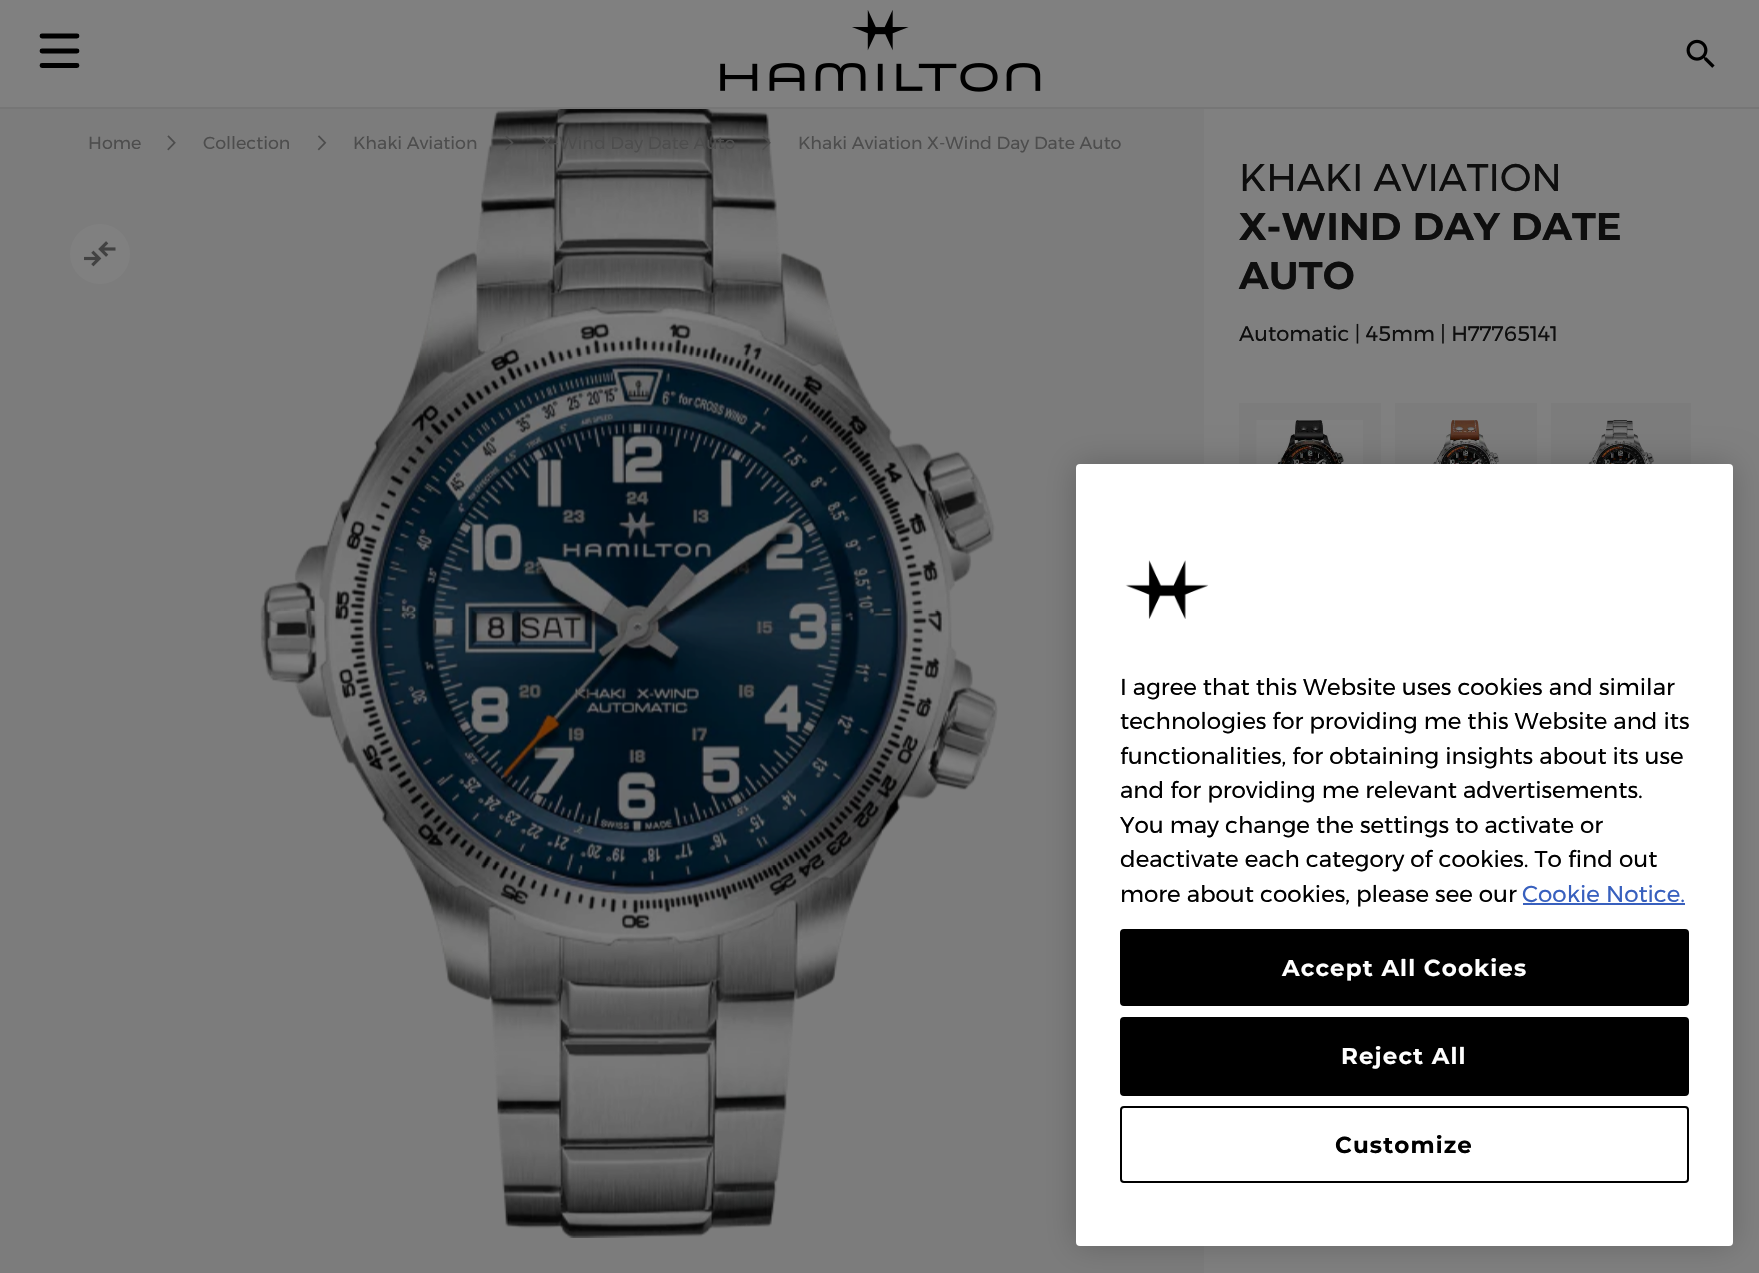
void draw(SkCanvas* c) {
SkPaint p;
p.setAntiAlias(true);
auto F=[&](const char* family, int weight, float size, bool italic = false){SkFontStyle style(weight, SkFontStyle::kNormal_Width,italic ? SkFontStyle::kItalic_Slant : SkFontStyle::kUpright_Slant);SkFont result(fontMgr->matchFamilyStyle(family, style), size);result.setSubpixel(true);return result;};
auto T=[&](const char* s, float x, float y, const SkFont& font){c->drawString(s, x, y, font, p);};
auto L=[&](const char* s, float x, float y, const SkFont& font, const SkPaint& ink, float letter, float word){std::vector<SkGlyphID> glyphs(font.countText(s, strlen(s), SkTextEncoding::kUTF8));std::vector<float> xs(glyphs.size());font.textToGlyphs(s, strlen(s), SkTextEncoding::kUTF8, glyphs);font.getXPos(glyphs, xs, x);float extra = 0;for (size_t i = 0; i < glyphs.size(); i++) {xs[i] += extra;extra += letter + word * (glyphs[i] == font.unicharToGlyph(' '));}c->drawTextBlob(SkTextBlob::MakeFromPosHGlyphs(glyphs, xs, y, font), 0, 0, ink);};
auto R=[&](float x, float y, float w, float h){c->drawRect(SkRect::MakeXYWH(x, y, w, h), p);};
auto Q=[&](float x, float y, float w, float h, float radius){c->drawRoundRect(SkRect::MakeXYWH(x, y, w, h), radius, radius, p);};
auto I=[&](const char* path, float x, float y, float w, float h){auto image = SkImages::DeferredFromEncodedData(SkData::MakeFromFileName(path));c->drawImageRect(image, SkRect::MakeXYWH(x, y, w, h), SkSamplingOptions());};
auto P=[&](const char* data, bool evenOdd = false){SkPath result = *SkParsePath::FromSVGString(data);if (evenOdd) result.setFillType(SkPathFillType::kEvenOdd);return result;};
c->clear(0xff808080);
p.setStroke(true);
p.setStrokeWidth(4.8);
p.setStrokeCap(SkPaint::kRound_Cap);
p.setColor(0xff000000);
c->drawPath(P("M42 36h35m-35 15h35m0 14.5h-35"),p);
I("1.png",720,10,321,82);
I("2.png",1686,39,29,29);
p.setStroke(false);
p.setColor(0xff767676);
R(0,107,1759,2);
p.setColor(0xff7c7c7c);
R(0,109,1204,1164);
I("3.png",260,109,738,1129);
auto f1 = F("Montserrat",400,17.5);
p.setColor(0xff4d4d4d);
T("Home",88,149,f1);
I("4.png",167,135,9,16);
T("Collection",203,149,f1);
I("5.png",317,135,10,16);
T("Khaki Aviation",353,149,f1);
I("6.png",505,135,9,15);
T("X-Wind Day Date Auto",541,149,f1);
I("7.png",762,135,9,15);
T("Khaki Aviation X-Wind Day Date Auto",798,149,f1);
p.setColor(0xff808080);
c->drawCircle(100,254,30,p);
I("8.png",84,241,32,26);
auto f2 = F("Montserrat",400,38.5);
p.setColor(0xff0e0e0e);
T("KHAKI AVIATION",1239,191,f2);
auto f3 = F("Montserrat",700,38.5);
T("X-WIND DAY DATE",1239,240,f3);
T("AUTO",1239,289,f3);
auto f4 = F("Montserrat",400,21);
T("Automatic | 45mm | H77765141",1239,341,f4);
p.setColor(0xff7c7c7c);
R(1239,403,142,61);
I("9.png",1256,420,107,44);
R(1395,403,142,61);
I("10.png",1433,420,67,44);
R(1551,403,140,61);
I("11.png",1588,420,66,44);
p.setColor(0x33000000);
p.setMaskFilter(SkMaskFilter::MakeBlur(kNormal_SkBlurStyle, 16));
c->drawRoundRect(SkRect::MakeXYWH(1076,464,657,782),4,4,p);
p.setMaskFilter(nullptr);
p.setColor(0xffffffff);
Q(1076,464,657,782,4);
I("12.png",1125,560,84,59);
auto f5 = F("Montserrat",400,23);
p.setColor(0xff000000);
T("I agree that this Website uses cookies and similar",1120,695,f5);
T("technologies for providing me this Website and its",1120,729,f5);
T("functionalities, for obtaining insights about its use",1120,764,f5);
T("and for providing me relevant advertisements.",1120,798,f5);
T("You may change the settings to activate or",1120,833,f5);
T("deactivate each category of cookies. To find out",1120,867,f5);
T("more about cookies, please see our",1120,902,f5);
p.setColor(0xff3860be);
T("Cookie Notice.",1522,902,f5);
R(1523,903,162,2);
p.setColor(0xff000000);
c->drawRoundRect(SkRect::MakeXYWH(1121,930,567,75),3,3,p);
p.setStroke(true);
p.setStrokeWidth(2);
p.setStrokeCap(SkPaint::kButt_Cap);
c->drawRoundRect(SkRect::MakeXYWH(1121,930,567,75),3,3,p);
auto f6 = F("Montserrat",700,23);
p.setStroke(false);
p.setColor(0xffffffff);
L("Accept All Cookies",1282,976,f6,p,1.1,0);
p.setColor(0xff000000);
c->drawRoundRect(SkRect::MakeXYWH(1121,1018,567,77),3,3,p);
p.setStroke(true);
c->drawRoundRect(SkRect::MakeXYWH(1121,1018,567,77),3,3,p);
p.setStroke(false);
p.setColor(0xffffffff);
L("Reject All",1341,1064,f6,p,1.1,0);
p.setStroke(true);
p.setColor(0xff000000);
c->drawRoundRect(SkRect::MakeXYWH(1121,1107,567,75),3,3,p);
p.setStroke(false);
L("Customize",1335,1153,f6,p,1.1,0);
}
